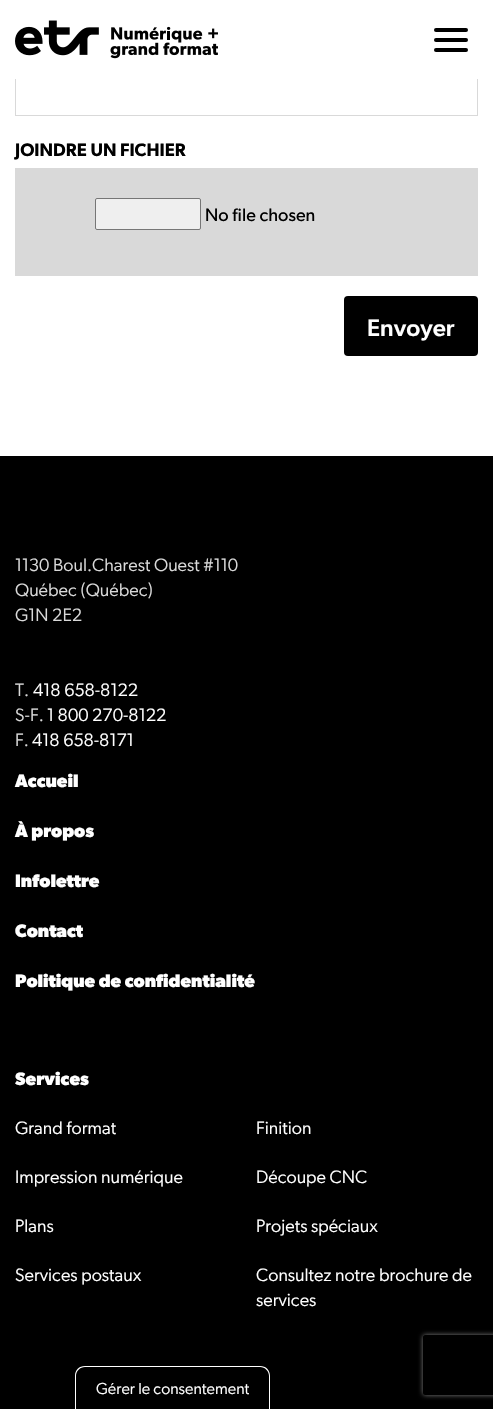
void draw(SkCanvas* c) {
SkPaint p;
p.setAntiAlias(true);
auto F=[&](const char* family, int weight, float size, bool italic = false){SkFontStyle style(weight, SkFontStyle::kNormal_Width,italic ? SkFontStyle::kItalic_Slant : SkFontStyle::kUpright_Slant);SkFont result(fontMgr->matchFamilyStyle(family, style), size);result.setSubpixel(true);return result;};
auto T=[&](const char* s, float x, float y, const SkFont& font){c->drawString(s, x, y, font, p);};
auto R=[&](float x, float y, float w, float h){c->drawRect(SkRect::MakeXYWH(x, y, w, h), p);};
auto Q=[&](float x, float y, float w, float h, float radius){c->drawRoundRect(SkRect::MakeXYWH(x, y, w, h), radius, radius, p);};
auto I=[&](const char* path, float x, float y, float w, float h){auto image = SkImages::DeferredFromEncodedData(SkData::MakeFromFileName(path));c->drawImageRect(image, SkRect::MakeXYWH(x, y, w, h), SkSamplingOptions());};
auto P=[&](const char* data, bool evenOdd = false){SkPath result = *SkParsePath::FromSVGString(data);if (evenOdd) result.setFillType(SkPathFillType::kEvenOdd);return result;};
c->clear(0xffffffff);
p.setStroke(true);
p.setStrokeWidth(1);
p.setColor(0xffd9d9d9);
c->drawRect(SkRect::MakeXYWH(15.5,-.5,462,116),p);
p.setStroke(false);
p.setColor(0xffffffff);
R(15,0,463,79);
I("1.png",15,20,203,39);
p.setColor(0xff000000);
Q(434,38,34,4,2);
Q(434,28,34,4,2);
Q(434,48,34,4,2);
auto f1 = F("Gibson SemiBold",600,18);
T("JOINDRE UN FICHIER",15,156,f1);
p.setColor(0xffd9d9d9);
R(15,168,463,108);
p.setColor(0xffefefef);
c->drawRoundRect(SkRect::MakeXYWH(95.5,198.5,105,31),1.5,1.5,p);
p.setStroke(true);
p.setColor(0xff767676);
c->drawRoundRect(SkRect::MakeXYWH(95.5,198.5,105,31),1.5,1.5,p);
auto f2 = F("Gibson",400,18);
p.setStroke(false);
p.setColor(0xff000000);
T("No file chosen",205,221,f2);
Q(344,296,134,60,4);
auto f3 = F("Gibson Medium",500,24);
p.setColor(0xffffffff);
T("Envoyer",367,336,f3);
p.setColor(0xff000000);
R(0,456,493,953);
auto f4 = F("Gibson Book",400,18);
p.setColor(0xffd9d9d9);
T("1130 Boul.Charest Ouest #110",15,571,f4);
T("Québec (Québec)",15,596,f4);
T("G1N 2E2",15,621,f4);
T("T.",15,696,f4);
p.setColor(0xffffffff);
T("418 658-8122",33,696,f4);
p.setColor(0xffd9d9d9);
T("S-F.",15,721,f4);
p.setColor(0xffffffff);
T("1 800 270-8122",47,721,f4);
p.setColor(0xffd9d9d9);
T("F.",15,746,f4);
p.setColor(0xffffffff);
T("418 658-8171",32,746,f4);
auto f5 = F("Gibson",700,18);
T("Accueil",15,787,f5);
T("À propos",15,837,f5);
T("Infolettre",15,887,f5);
T("Contact",15,937,f5);
T("Politique de confidentialité",15,987,f5);
T("Services",15,1085,f5);
T("Grand format",15,1134,f4);
T("Finition",256,1134,f4);
T("Impression numérique",15,1183,f4);
T("Découpe CNC",256,1183,f4);
T("Plans",15,1232,f4);
T("Projets spéciaux",256,1232,f4);
T("Services postaux",15,1281,f4);
T("Consultez notre brochure de",256,1281,f4);
T("services",256,1306,f4);
c->drawPath(P("M85 1366h175c6 0 10 4 10 10v33h-195v-33c0-6 4-10 10-10zm0 1h175c5 0 9 4 9 9v33h-193v-33c0-5 4-9 9-9z",true),p);
auto f6 = F("Gibson Book",400,16);
T("Gérer le consentement",96,1394,f6);
c->save();
c->clipPath(P("M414 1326h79v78h-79zm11 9h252c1 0 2 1 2 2v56c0 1-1 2-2 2h-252c-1 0-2-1-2-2v-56c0-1 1-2 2-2z",true),true);
p.setColor(0xff808080);
p.setMaskFilter(SkMaskFilter::MakeBlur(kNormal_SkBlurStyle, 2.5));
c->drawRoundRect(SkRect::MakeXYWH(423,1335,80,60),2,2,p);
p.setMaskFilter(nullptr);
c->restore();
}
